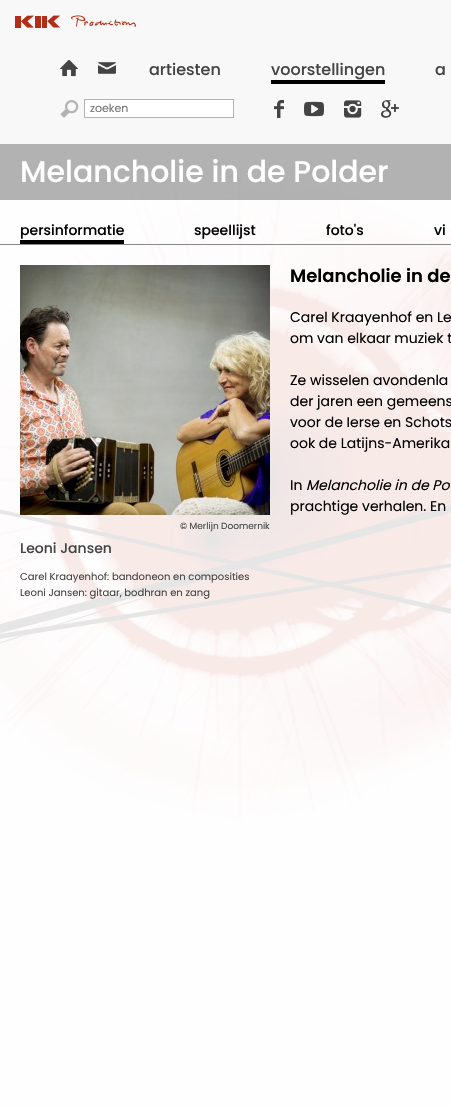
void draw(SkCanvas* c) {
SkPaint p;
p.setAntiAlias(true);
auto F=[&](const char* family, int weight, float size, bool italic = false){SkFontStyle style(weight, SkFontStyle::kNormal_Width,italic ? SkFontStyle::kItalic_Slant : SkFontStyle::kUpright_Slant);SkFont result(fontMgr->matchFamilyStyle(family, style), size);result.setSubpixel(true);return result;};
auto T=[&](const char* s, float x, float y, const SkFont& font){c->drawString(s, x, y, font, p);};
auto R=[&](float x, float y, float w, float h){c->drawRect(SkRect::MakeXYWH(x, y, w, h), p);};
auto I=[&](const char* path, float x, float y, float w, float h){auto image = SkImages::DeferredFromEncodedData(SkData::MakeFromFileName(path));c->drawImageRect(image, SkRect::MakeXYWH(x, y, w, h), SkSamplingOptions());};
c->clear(0xfff8f8f8);
p.setColor(0xfffefefe);
R(0,144,451,963);
I("1.png",0,162,451,662);
I("2.png",15,15,121,13);
I("3.png",60,60,18,17);
I("4.png",98,62,18,12);
auto f1 = F("Poppins",500,16);
p.setColor(0xff444444);
T("artiesten",149,75,f1);
p.setColor(0xff000000);
R(271,80,114,4);
p.setColor(0xff444444);
T("voorstellingen",271,75,f1);
T("a",435,75,f1);
I("5.png",60,100,19,18);
p.setColor(0xffffffff);
c->drawRect(SkRect::MakeXYWH(84.5,99.5,149,18),p);
p.setStroke(true);
p.setStrokeWidth(1);
p.setColor(0xffb3b3b3);
c->drawRect(SkRect::MakeXYWH(84.5,99.5,149,18),p);
auto f2 = F("Poppins",400,11);
p.setStroke(false);
p.setColor(0xff757575);
T("zoeken",90,112,f2);
I("6.png",274,100,10,18);
I("7.png",304,101,20,16);
I("8.png",344,100,18,18);
I("9.png",381,100,18,18);
p.setColor(0x80666666);
R(0,144,451,56);
auto f3 = F("Poppins",500,30);
p.setColor(0xffffffff);
T("Melancholie in de Polder",20,182,f3);
p.setColor(0xff888888);
R(0,244,451,1);
p.setColor(0xff000000);
R(20,240,104,4);
auto f4 = F("Poppins",500,14);
T("persinformatie",20,235,f4);
T("speellijst",194,235,f4);
T("foto's",326,235,f4);
T("vi",434,235,f4);
auto f5 = F("Poppins",600,18);
T("Melancholie in de",290,282,f5);
auto f6 = F("Poppins",400,14);
T("Carel Kraayenhof en Le",290,322,f6);
T("om van elkaar muziek t",290,343,f6);
T("Ze wisselen avondenla",290,385,f6);
T("der jaren een gemeens",290,406,f6);
T("voor de Ierse en Schots",290,427,f6);
T("ook de Latijns-Amerika",290,448,f6);
T("In",290,490,f6);
auto f7 = F("Poppins",400,14,true);
T("Melancholie in de Po",306,490,f7);
T("prachtige verhalen. En",290,511,f6);
I("10.png",20,265,250,250);
auto f8 = F("Poppins",400,9);
p.setColor(0xff444444);
T("© Merlijn Doomernik",180,529,f8);
T("Leoni Jansen",20,553,f4);
auto f9 = F("Poppins",400,10);
T("Carel Kraayenhof: bandoneon en composities",20,580,f9);
T("Leoni Jansen: gitaar, bodhran en zang",20,596,f9);
}
